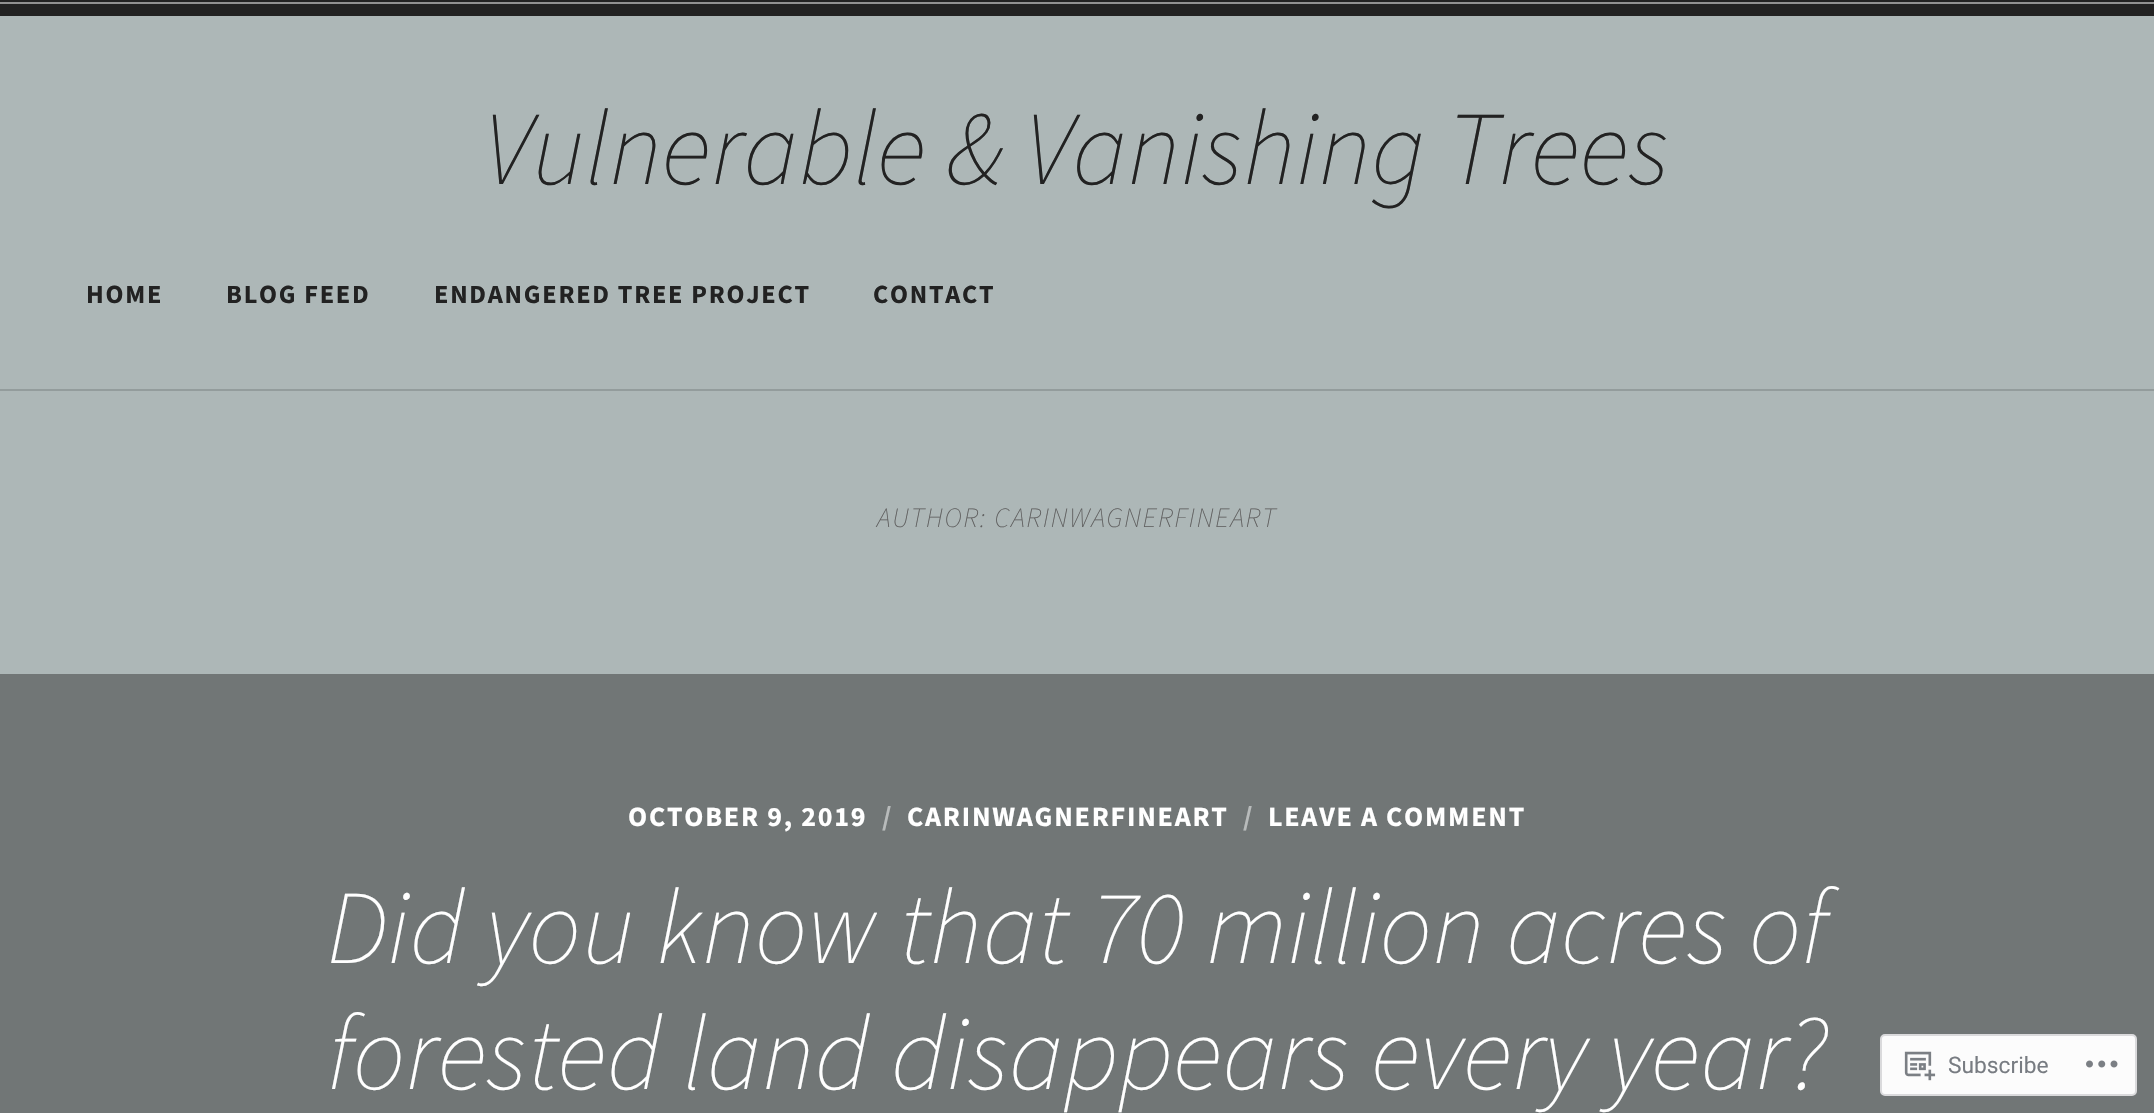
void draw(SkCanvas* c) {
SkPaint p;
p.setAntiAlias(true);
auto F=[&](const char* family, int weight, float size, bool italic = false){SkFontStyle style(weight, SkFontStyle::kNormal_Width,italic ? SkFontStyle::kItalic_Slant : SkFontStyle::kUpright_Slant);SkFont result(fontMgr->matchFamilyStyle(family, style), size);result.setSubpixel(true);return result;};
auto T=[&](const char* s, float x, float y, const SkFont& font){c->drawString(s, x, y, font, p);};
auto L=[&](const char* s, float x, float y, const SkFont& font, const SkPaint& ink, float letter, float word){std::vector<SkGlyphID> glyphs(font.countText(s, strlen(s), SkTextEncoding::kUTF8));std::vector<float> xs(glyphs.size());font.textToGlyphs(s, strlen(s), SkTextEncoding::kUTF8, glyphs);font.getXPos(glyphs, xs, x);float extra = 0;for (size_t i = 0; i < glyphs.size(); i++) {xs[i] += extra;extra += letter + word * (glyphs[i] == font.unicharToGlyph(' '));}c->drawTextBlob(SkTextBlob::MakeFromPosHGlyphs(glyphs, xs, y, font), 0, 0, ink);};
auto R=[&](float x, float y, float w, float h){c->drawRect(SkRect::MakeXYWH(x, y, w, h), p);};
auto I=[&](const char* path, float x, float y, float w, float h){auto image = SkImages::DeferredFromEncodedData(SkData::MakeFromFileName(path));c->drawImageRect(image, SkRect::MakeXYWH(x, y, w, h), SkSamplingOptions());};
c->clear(0xffadb7b7);
p.setColor(0xff222222);
R(0,0,2154,16);
p.setColor(0xff919191);
R(0,2,2154,2);
auto f1 = F("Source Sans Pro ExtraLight",200,105,true);
p.setColor(0xff222222);
T("Vulnerable & Vanishing Trees",484,184,f1);
auto f2 = F("Source Sans Pro",700,26.25);
L("HOME",86,303,f2,p,1.75,0);
L("BLOG FEED",226,303,f2,p,1.75,0);
L("ENDANGERED TREE PROJECT",434,303,f2,p,1.75,0);
L("CONTACT",873,303,f2,p,1.75,0);
p.setColor(0xff939c9c);
R(0,389,2154,2);
auto f3 = F("Source Sans Pro ExtraLight",200,28,true);
p.setColor(0xff606060);
L("AUTHOR: CARINWAGNERFINEART",877,527,f3,p,1.75,0);
p.setColor(0xff717676);
R(0,674,2154,439);
auto f4 = F("Source Sans Pro",700,28);
p.setColor(0xffffffff);
L("OCTOBER 9, 2019",628,826,f4,p,1.75,0);
p.setColor(0xffb8bbbb);
L("/",882,826,f4,p,1.75,0);
p.setColor(0xffffffff);
L("CARINWAGNERFINEART",907,826,f4,p,1.75,0);
p.setColor(0xffb8bbbb);
L("/",1243,826,f4,p,1.75,0);
p.setColor(0xffffffff);
L("LEAVE A COMMENT",1268,826,f4,p,1.75,0);
T("Did you know that 70 million acres of",327,963,f1);
T("forested land disappears every year?",327,1089,f1);
p.setColor(0xfffcfcfc);
c->drawRoundRect(SkRect::MakeXYWH(1881,1035,255,60),4,4,p);
p.setStroke(true);
p.setStrokeWidth(2);
p.setColor(0xffdadadc);
c->drawRoundRect(SkRect::MakeXYWH(1881,1035,255,60),4,4,p);
I("1.png",1904,1051,32,30);
auto f5 = F("Roboto",400,22.75);
p.setStroke(false);
p.setColor(0xff787c82);
T("Subscribe",1948,1073,f5);
I("2.png",2086,1060,32,8);
}
